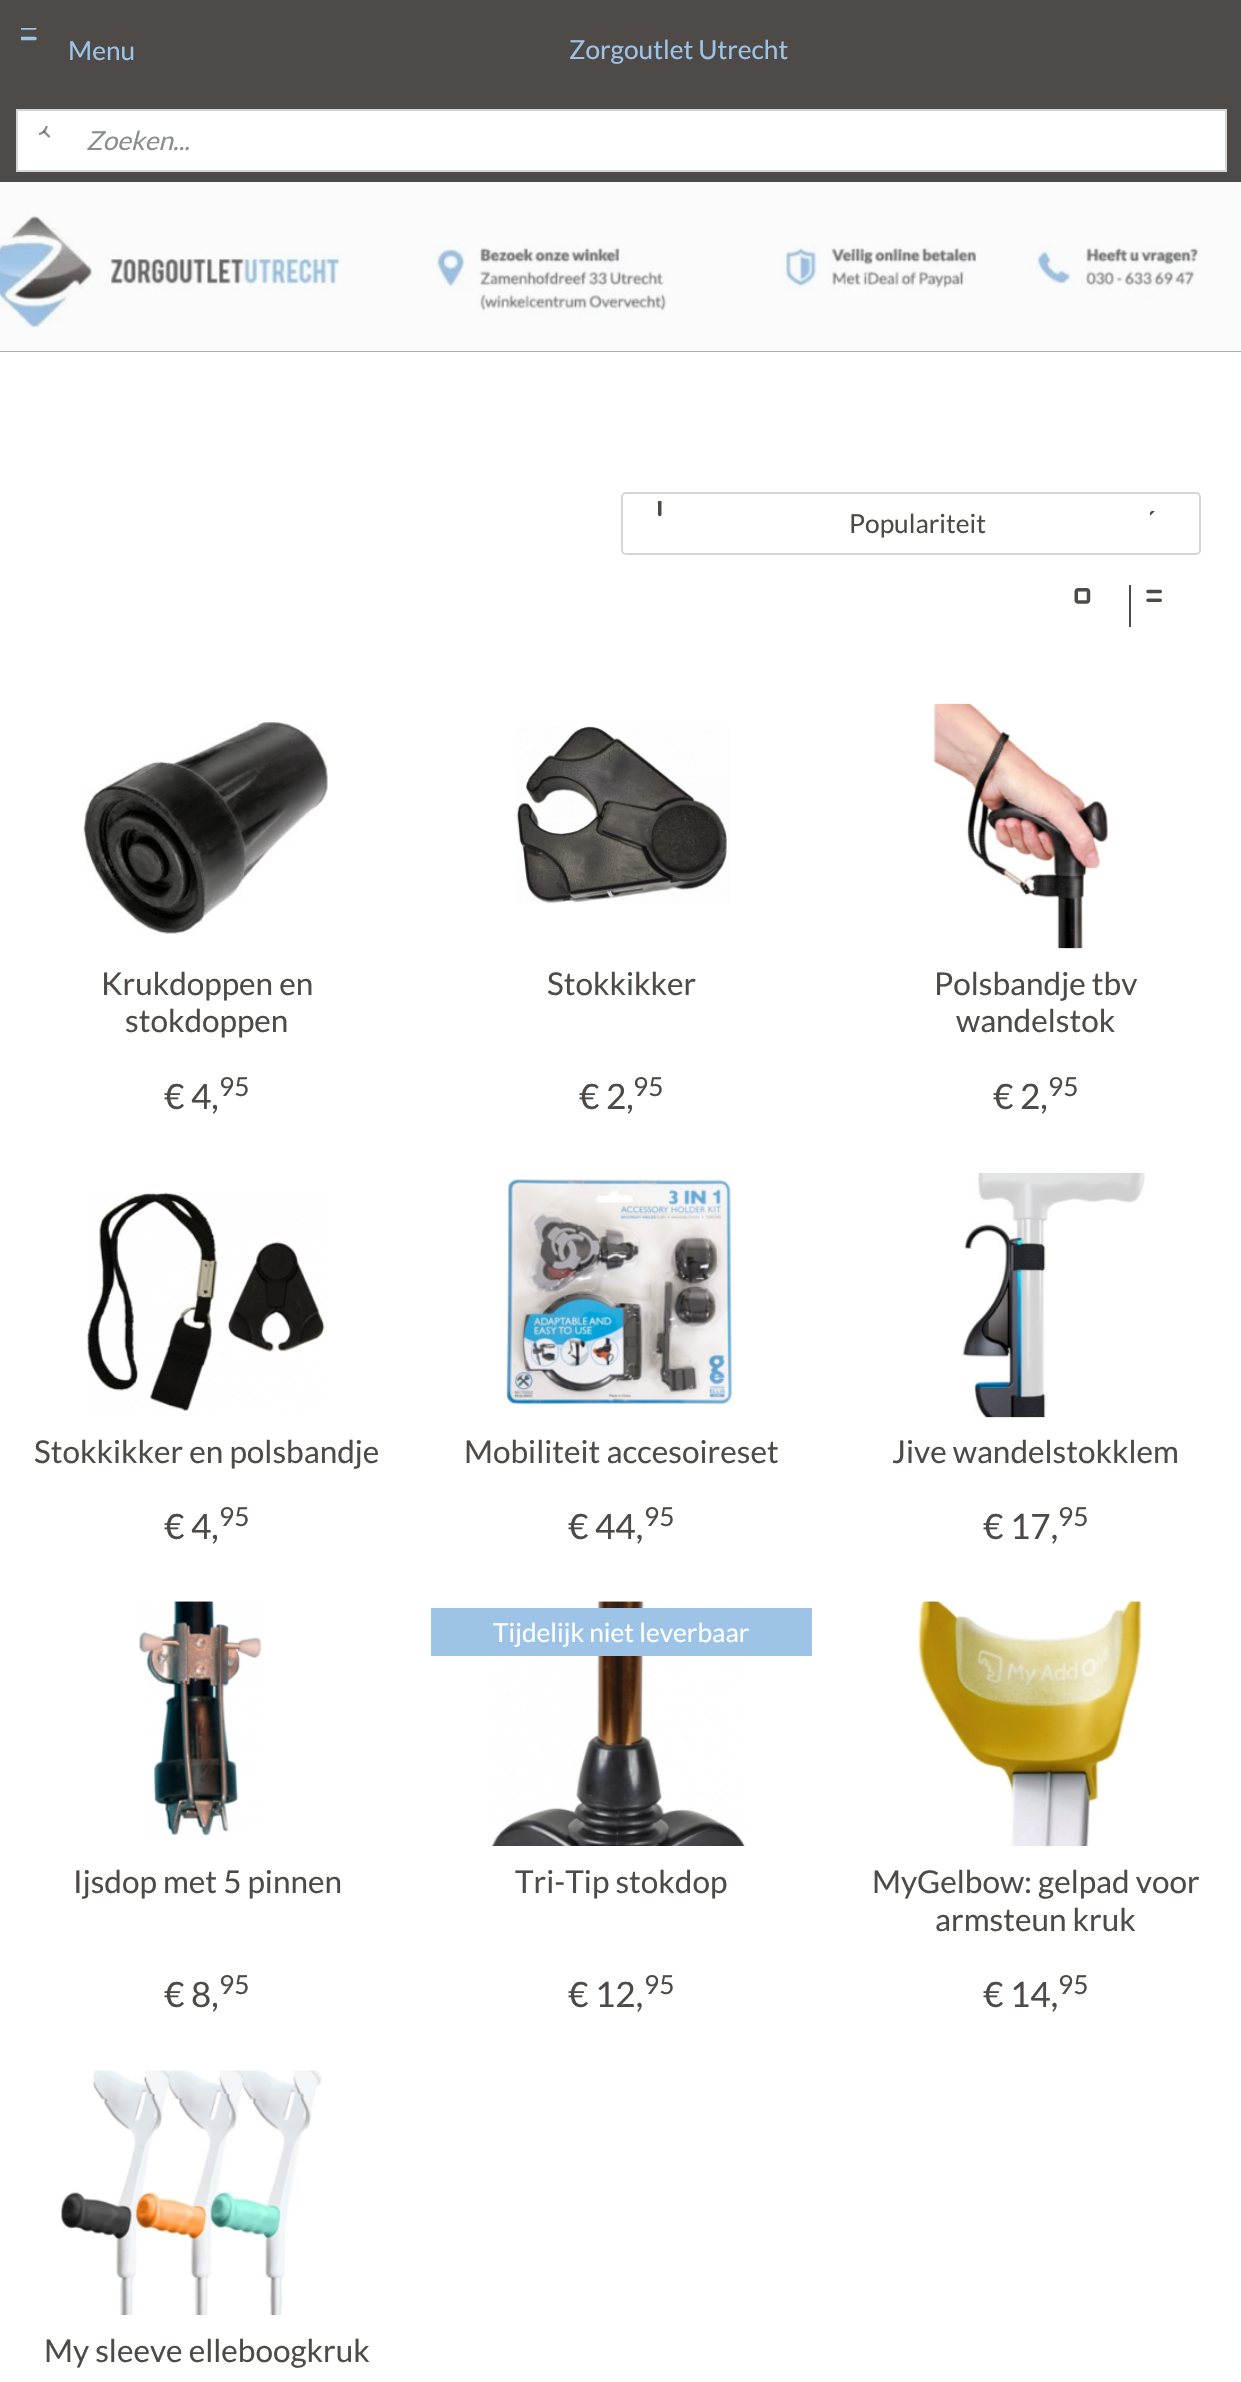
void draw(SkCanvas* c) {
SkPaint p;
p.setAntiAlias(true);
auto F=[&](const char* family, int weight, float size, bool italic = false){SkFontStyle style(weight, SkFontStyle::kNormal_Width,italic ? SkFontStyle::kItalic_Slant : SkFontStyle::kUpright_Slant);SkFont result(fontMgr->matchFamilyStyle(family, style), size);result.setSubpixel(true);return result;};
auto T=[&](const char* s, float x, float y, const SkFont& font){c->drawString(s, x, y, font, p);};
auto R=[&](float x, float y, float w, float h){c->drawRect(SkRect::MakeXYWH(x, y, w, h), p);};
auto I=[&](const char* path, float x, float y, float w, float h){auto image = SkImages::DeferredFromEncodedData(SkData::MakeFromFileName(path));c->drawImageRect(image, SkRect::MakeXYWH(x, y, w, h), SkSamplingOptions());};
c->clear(0xffffffff);
p.setColor(0xff4e4a48);
R(0,0,1241,352);
I("1.png",21,28,16,13);
auto f1 = F("Lato",400,26.25);
p.setColor(0xff9dc3e7);
T("Menu",68,60,f1);
T("Zorgoutlet Utrecht",569,59,f1);
p.setColor(0xffffffff);
c->drawRect(SkRect::MakeXYWH(17,110,1209,61),p);
p.setStroke(true);
p.setStrokeWidth(2);
p.setColor(0xffd3d5d9);
c->drawRect(SkRect::MakeXYWH(17,110,1209,61),p);
I("2.png",39,126,12,12);
auto f2 = F("Lato",400,26.25,true);
p.setStroke(false);
p.setColor(0xff898c91);
T("Zoeken...",86,150,f2);
I("3.png",0,182,1241,170);
p.setStroke(true);
p.setColor(0xffd6d6d6);
c->drawRoundRect(SkRect::MakeXYWH(622,493,578,61),4,4,p);
I("4.png",658,501,4,16);
p.setStroke(false);
p.setColor(0xff4e4a48);
T("Populariteit",849,533,f1);
I("5.png",1150,511,5,5);
I("6.png",1074,588,17,16);
R(1129,585,2,42);
I("7.png",1146,589,16,13);
I("8.png",83,721,245,213);
auto f3 = F("Lato",400,31.5);
T("Krukdoppen en",101,995,f3);
T("stokdoppen",125,1032,f3);
auto f4 = F("Lato",400,35);
T("€ 4,",164,1109,f4);
T("95",219,1096,f1);
I("9.png",516,726,215,178);
T("Stokkikker",547,995,f3);
T("€ 2,",579,1109,f4);
T("95",633,1096,f1);
I("10.png",933,703,175,246);
T("Polsbandje tbv",934,995,f3);
T("wandelstok",956,1032,f3);
T("€ 2,",993,1109,f4);
T("95",1048,1096,f1);
I("11.png",87,1192,238,219);
T("Stokkikker en polsbandje",34,1463,f3);
T("€ 4,",164,1539,f4);
T("95",219,1526,f1);
I("12.png",505,1178,231,227);
T("Mobiliteit accesoireset",464,1463,f3);
T("€ 44,",568,1539,f4);
T("95",644,1526,f1);
I("13.png",962,1172,183,246);
T("Jive wandelstokklem",892,1463,f3);
T("€ 17,",983,1539,f4);
T("95",1058,1526,f1);
I("14.png",139,1601,123,236);
T("Ijsdop met 5 pinnen",73,1893,f3);
T("€ 8,",164,2007,f4);
T("95",219,1994,f1);
I("15.png",491,1601,255,245);
p.setColor(0xff9dc3e7);
R(431,1608,381,48);
p.setColor(0xffffffff);
T("Tijdelijk niet leverbaar",493,1642,f1);
p.setColor(0xff4e4a48);
T("Tri-Tip stokdop",515,1893,f3);
T("€ 12,",568,2007,f4);
T("95",644,1994,f1);
I("16.png",917,1601,227,245);
T("MyGelbow: gelpad voor",872,1893,f3);
T("armsteun kruk",935,1931,f3);
T("€ 14,",983,2007,f4);
T("95",1058,1994,f1);
I("17.png",61,2070,261,245);
T("My sleeve elleboogkruk",44,2362,f3);
}
